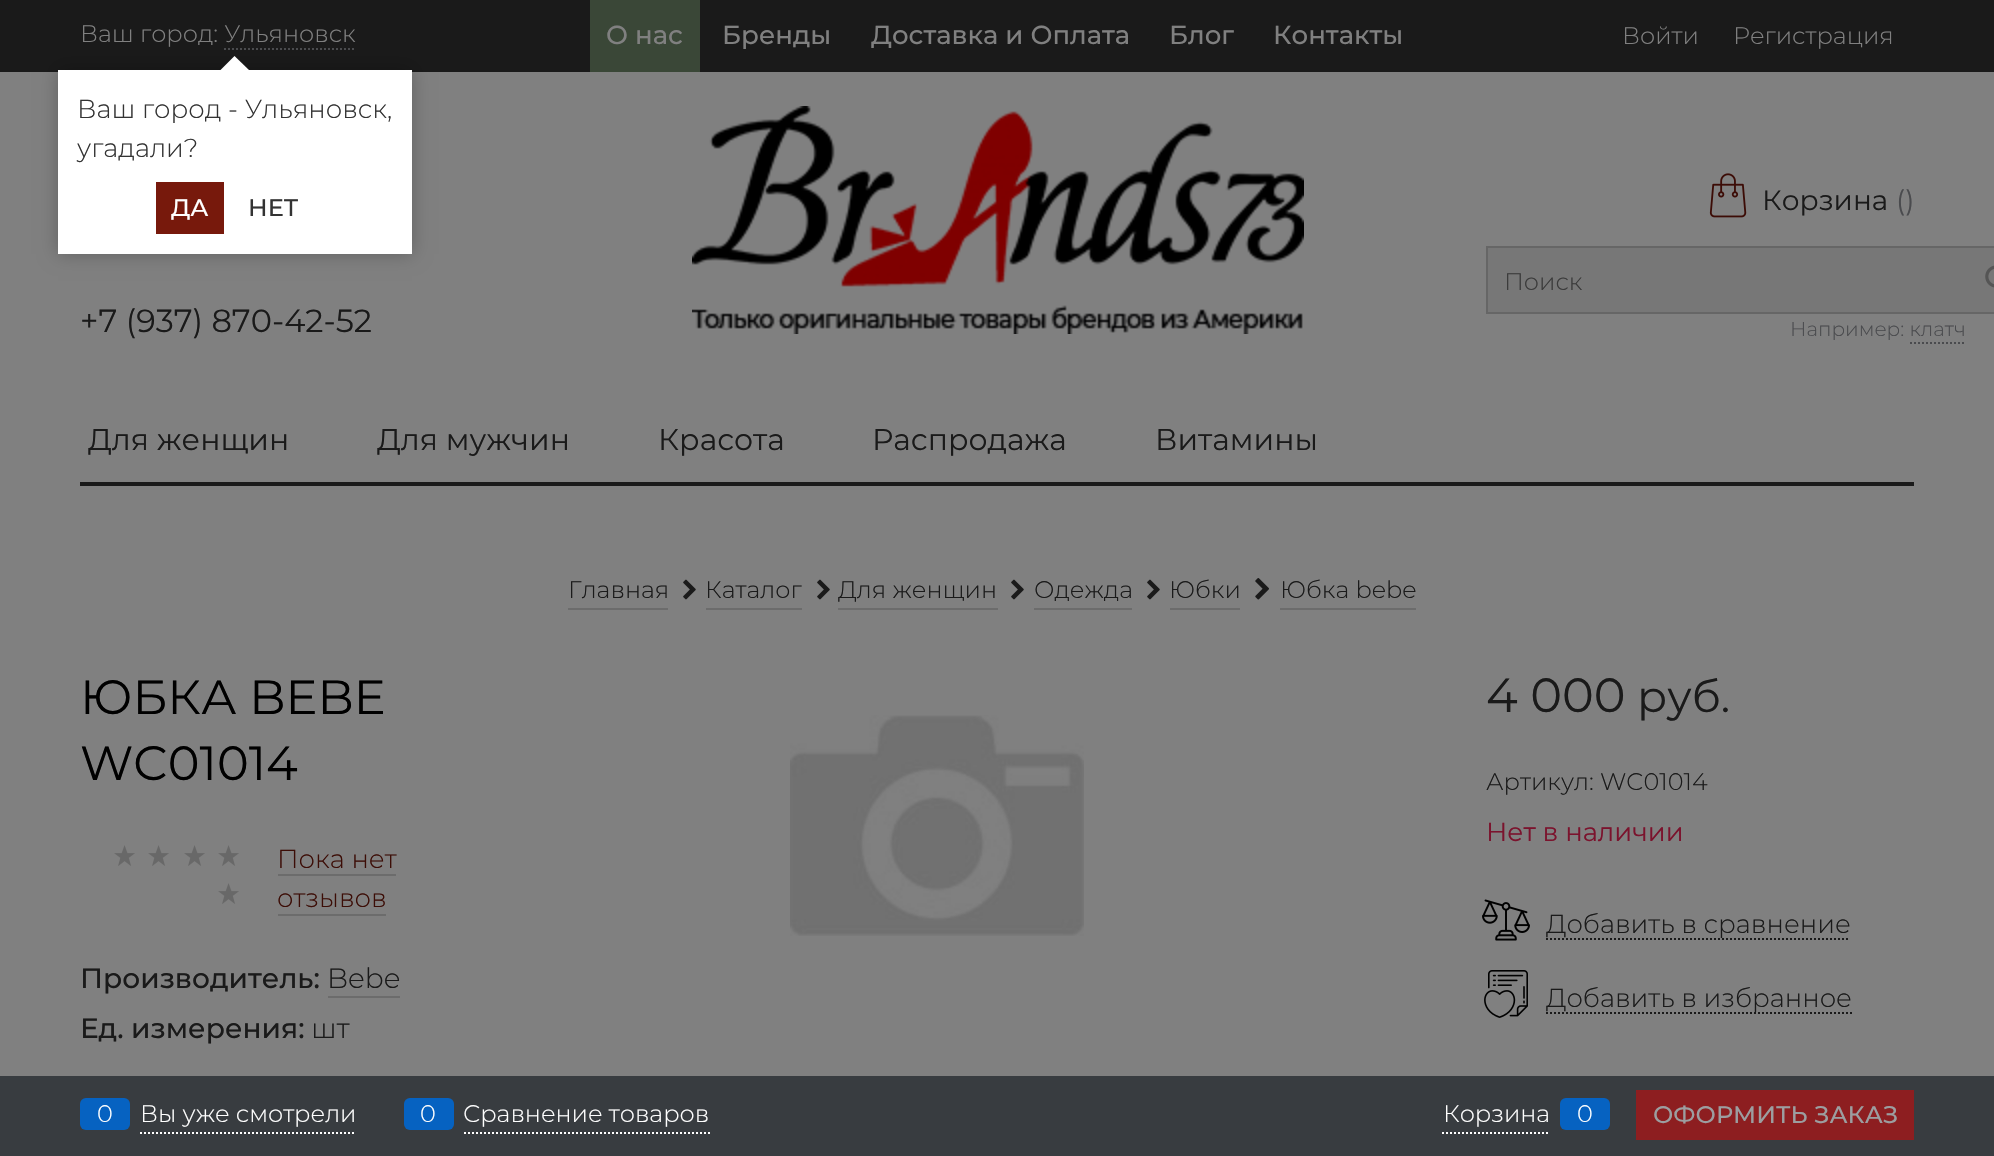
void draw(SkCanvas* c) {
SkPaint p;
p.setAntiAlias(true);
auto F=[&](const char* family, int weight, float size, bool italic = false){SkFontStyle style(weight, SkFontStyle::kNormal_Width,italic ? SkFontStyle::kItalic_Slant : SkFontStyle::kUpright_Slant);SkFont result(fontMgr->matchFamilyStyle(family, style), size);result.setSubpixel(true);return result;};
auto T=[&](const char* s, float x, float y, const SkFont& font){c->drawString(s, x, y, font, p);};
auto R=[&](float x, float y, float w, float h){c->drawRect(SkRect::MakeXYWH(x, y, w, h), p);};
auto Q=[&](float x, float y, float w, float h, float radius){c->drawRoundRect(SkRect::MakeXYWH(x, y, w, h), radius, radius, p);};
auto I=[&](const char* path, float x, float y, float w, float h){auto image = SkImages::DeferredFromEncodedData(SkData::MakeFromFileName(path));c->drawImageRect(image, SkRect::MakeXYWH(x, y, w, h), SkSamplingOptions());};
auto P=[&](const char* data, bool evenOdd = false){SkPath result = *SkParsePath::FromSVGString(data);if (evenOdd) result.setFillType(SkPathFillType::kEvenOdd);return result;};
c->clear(0xff808080);
p.setColor(0xff1a1a1a);
R(0,0,1994,72);
auto f1 = F("Montserrat",300,24);
p.setColor(0xff808080);
T("Ваш город: Ульяновск",80,42,f1);
p.setStroke(true);
p.setStrokeWidth(2);
p.setColor(0xff4a4b4e);
p.setPathEffect(SkDashPathEffect::Make({{2,2}}, 0));
c->drawPath(P("M224 49h132"),p);
p.setPathEffect(nullptr);
p.setStroke(false);
p.setColor(0xff3a4737);
R(590,0,110,72);
auto f2 = F("Montserrat",500,26);
p.setColor(0xff808080);
T("О нас",606,44,f2);
T("Бренды",722,44,f2);
T("Доставка и Оплата",871,44,f2);
T("Блог",1169,44,f2);
T("Контакты",1273,44,f2);
T("Войти",1622,44,f1);
T("Регистрация",1733,44,f1);
auto f3 = F("Montserrat",400,32);
p.setColor(0xff1a1a1a);
T("+7 (937) 870-42-52",80,332,f3);
I("1.png",692,106,612,228);
I("2.png",1709,173,38,45);
auto f4 = F("Montserrat",400,28);
T("Корзина",1762,210,f4);
p.setColor(0xff4a4b4e);
T("()",1896,210,f4);
p.setColor(0xff777777);
R(1488,248,506,64);
p.setColor(0xff666666);
R(1486,246,508,2);
R(1486,312,508,2);
R(1486,246,2,68);
p.setColor(0xff3b3b3b);
T("Поиск",1504,290,f1);
auto f5 = F("Montserrat",300,20);
p.setColor(0xff4a4b4e);
T("Например: клатч",1790,336,f5);
p.setStroke(true);
p.setPathEffect(SkDashPathEffect::Make({{2,2}}, 0));
c->drawPath(P("M1910 343h56"),p);
p.setPathEffect(nullptr);
I("3.png",1985,265,9,23);
auto f6 = F("Montserrat",400,30);
p.setStroke(false);
p.setColor(0xff1a1a1a);
T("Для женщин",88,450,f6);
T("Для мужчин",377,450,f6);
T("Красота",658,450,f6);
T("Распродажа",872,450,f6);
T("Витамины",1155,450,f6);
R(80,482,1834,4);
p.setColor(0xff6c6c6c);
R(568,608,100,2);
p.setColor(0xff1a1a1a);
T("Главная",568,598,f1);
I("4.png",683,579,13,21);
p.setColor(0xff6c6c6c);
R(706,608,96,2);
p.setColor(0xff1a1a1a);
T("Каталог",705,598,f1);
I("4.png",817,579,13,21);
p.setColor(0xff6c6c6c);
R(838,608,160,2);
p.setColor(0xff1a1a1a);
T("Для женщин",838,598,f1);
I("4.png",1011,579,13,21);
p.setColor(0xff6c6c6c);
R(1034,608,98,2);
p.setColor(0xff1a1a1a);
T("Одежда",1034,598,f1);
I("4.png",1147,579,13,21);
p.setColor(0xff6c6c6c);
R(1170,608,70,2);
p.setColor(0xff1a1a1a);
T("Юбки",1169,598,f1);
I("5.png",1255,578,14,22);
p.setColor(0xff6c6c6c);
R(1280,608,136,2);
p.setColor(0xff1a1a1a);
T("Юбка bebe",1280,598,f1);
auto f7 = F("Montserrat",400,48);
p.setColor(0xff000000);
T("ЮБКА BEBE",80,714,f7);
T("WC01014",80,780,f7);
I("6.png",114,845,21,21);
I("6.png",148,845,21,21);
I("6.png",184,845,21,21);
I("6.png",218,845,21,21);
I("6.png",218,883,21,21);
auto f8 = F("Montserrat",300,26);
p.setColor(0xff3c0d06);
T("Пока нет",277,868,f8);
p.setColor(0xff6c6c6c);
R(278,874,118,2);
p.setColor(0xff3c0d06);
T("отзывов",277,907,f8);
p.setColor(0xff6c6c6c);
R(278,914,108,2);
auto f9 = F("Montserrat",500,28);
p.setColor(0xff1a1a1a);
T("Производитель:",80,988,f9);
auto f10 = F("Montserrat",300,28);
T("Bebe",327,988,f10);
p.setColor(0xff6c6c6c);
R(328,996,72,2);
p.setColor(0xff1a1a1a);
T("Ед. измерения:",80,1038,f9);
T("шт",311,1038,f10);
I("7.png",790,715,294,221);
T("4 000",1486,712,f7);
auto f11 = F("Montserrat",400,44);
T("руб.",1637,712,f11);
T("Артикул:",1486,790,f1);
T("WC01014",1600,790,f1);
auto f12 = F("Montserrat",400,26);
p.setColor(0xff7b132d);
T("Нет в наличии",1486,841,f12);
I("8.png",1482,899,48,42);
p.setStroke(true);
p.setColor(0xff1a1a1a);
p.setPathEffect(SkDashPathEffect::Make({{2,2}}, 0));
c->drawPath(P("M1546 939h304"),p);
p.setPathEffect(nullptr);
p.setStroke(false);
T("Добавить в сравнение",1546,933,f8);
I("9.png",1484,970,44,48);
p.setStroke(true);
p.setPathEffect(SkDashPathEffect::Make({{2,2}}, 0));
c->drawPath(P("M1546 1013h306"),p);
p.setPathEffect(nullptr);
p.setStroke(false);
T("Добавить в избранное",1546,1007,f8);
p.setColor(0xff383c40);
R(0,1076,1994,80);
p.setStroke(true);
p.setColor(0xffffffff);
p.setPathEffect(SkDashPathEffect::Make({{2,2}}, 0));
c->drawPath(P("M140 1133h216"),p);
p.setPathEffect(nullptr);
p.setStroke(false);
p.setColor(0xff0662c1);
Q(80,1098,50,32,6);
p.setColor(0xffffffff);
T("0",97,1122,f1);
T("Вы уже смотрели",140,1122,f1);
p.setStroke(true);
p.setPathEffect(SkDashPathEffect::Make({{2,2}}, 0));
c->drawPath(P("M464 1133h246"),p);
p.setPathEffect(nullptr);
p.setStroke(false);
p.setColor(0xff0662c1);
Q(404,1098,50,32,6);
p.setColor(0xffffffff);
T("0",420,1122,f1);
T("Сравнение товаров",463,1122,f1);
p.setStroke(true);
p.setPathEffect(SkDashPathEffect::Make({{2,2}}, 0));
c->drawPath(P("M1442 1133h108"),p);
p.setPathEffect(nullptr);
p.setStroke(false);
T("Корзина",1443,1122,f1);
p.setColor(0xff0662c1);
Q(1560,1098,50,32,6);
p.setColor(0xffffffff);
T("0",1577,1122,f1);
p.setColor(0xff8d1e20);
R(1636,1090,278,50);
auto f13 = F("Montserrat",500,24);
p.setColor(0xff9c9ea0);
T("ОФОРМИТЬ ЗАКАЗ",1653,1123,f13);
p.setColor(0x40000000);
p.setMaskFilter(SkMaskFilter::MakeBlur(kNormal_SkBlurStyle, 9));
c->drawRect(SkRect::MakeXYWH(58,70,354,184),p);
p.setMaskFilter(nullptr);
p.setColor(0xffffffff);
R(58,70,354,184);
c->save();
c->clipRect(SkRect::MakeXYWH(58,52,354,18));
c->drawPath(P("M234.5 56l14.5 14l-14.5 14l-14-14z"),p);
c->restore();
p.setColor(0xff333333);
T("Ваш город - Ульяновск,",77,118,f8);
T("угадали?",77,157,f8);
p.setColor(0xff77190c);
R(156,182,68,52);
p.setColor(0xffffffff);
T("ДА",171,216,f13);
p.setColor(0xff333333);
T("НЕТ",248,216,f13);
}
